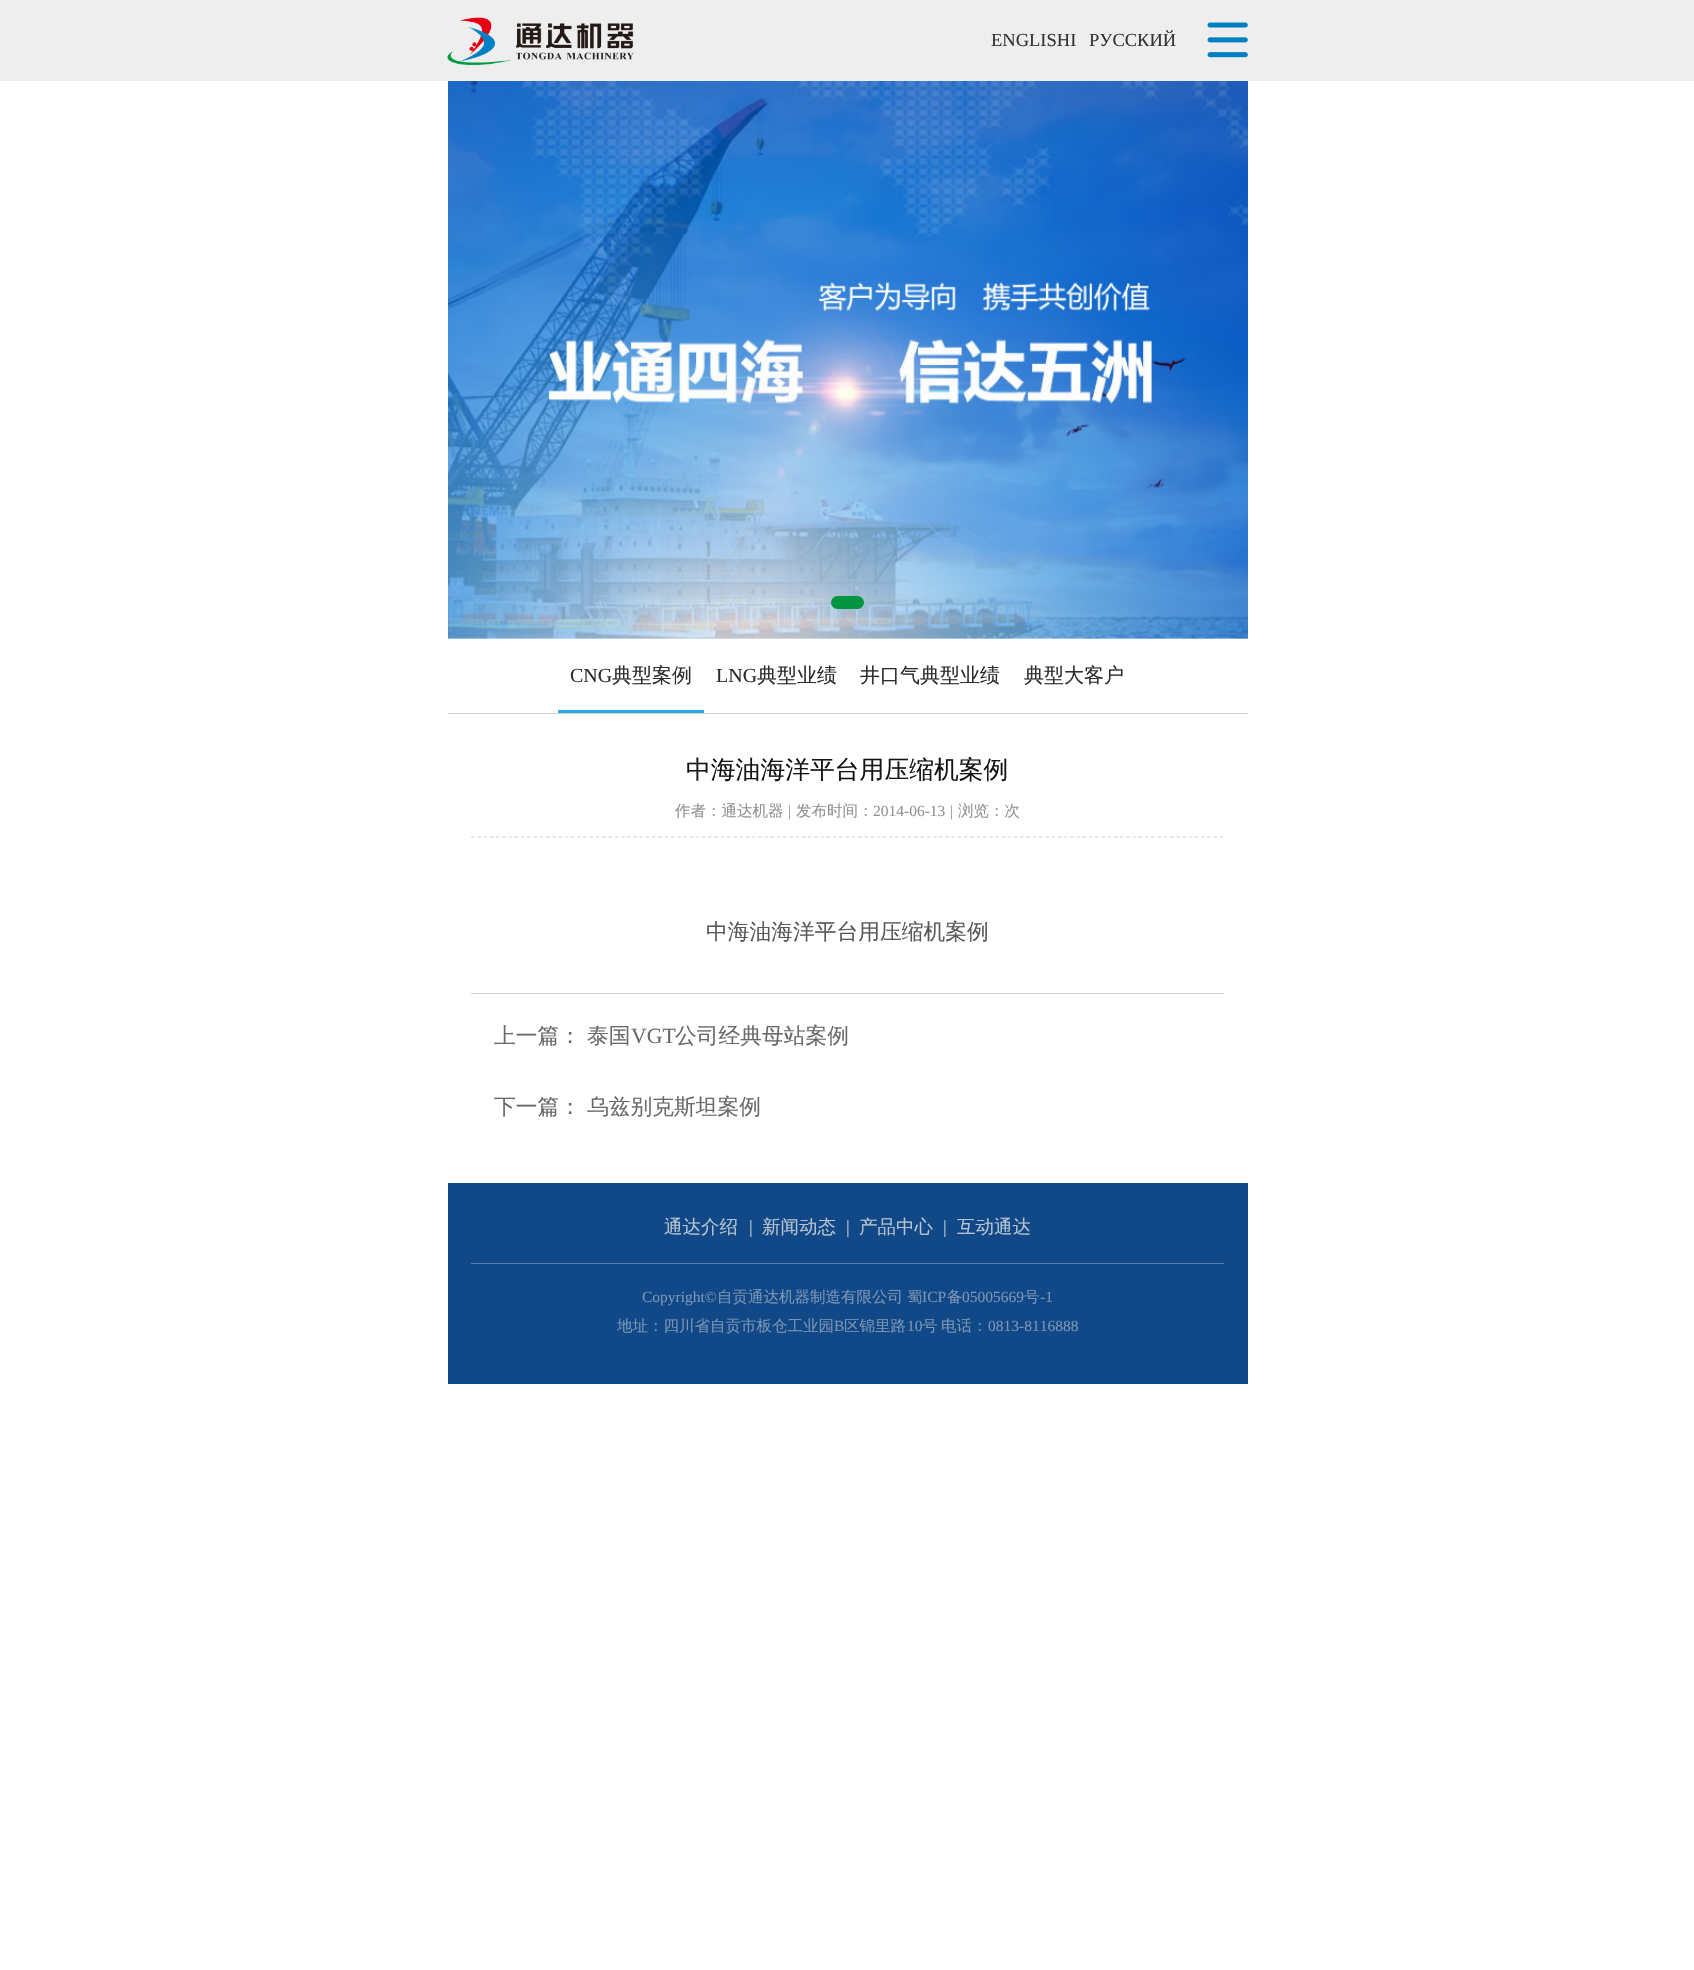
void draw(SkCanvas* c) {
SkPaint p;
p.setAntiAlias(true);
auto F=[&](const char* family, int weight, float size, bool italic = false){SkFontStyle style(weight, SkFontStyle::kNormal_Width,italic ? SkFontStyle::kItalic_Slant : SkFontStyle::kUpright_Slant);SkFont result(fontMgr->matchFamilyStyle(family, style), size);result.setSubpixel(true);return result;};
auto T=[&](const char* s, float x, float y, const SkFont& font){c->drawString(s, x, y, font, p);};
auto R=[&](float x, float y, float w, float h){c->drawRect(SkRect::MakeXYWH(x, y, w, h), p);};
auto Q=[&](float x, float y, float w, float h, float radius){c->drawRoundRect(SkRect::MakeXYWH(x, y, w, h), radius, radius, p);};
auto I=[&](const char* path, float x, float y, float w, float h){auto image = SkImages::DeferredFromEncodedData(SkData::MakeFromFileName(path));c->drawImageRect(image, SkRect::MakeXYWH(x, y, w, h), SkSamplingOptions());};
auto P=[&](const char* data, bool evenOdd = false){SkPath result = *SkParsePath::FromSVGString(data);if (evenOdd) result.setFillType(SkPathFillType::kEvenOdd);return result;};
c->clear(0xffffffff);
p.setColor(0xffeeeeee);
R(0,0,1694,81);
I("1.png",447,17,187,49);
auto f1 = F("Liberation Serif",400,18.5);
p.setColor(0xff333333);
T("ENGLISHI",991,46,f1);
T("РУССКИЙ",1089,46,f1);
I("2.png",1207,22,41,36);
I("3.png",448,81,800,558);
p.setColor(0xff00963f);
Q(831,596,33,13,6.5);
p.setColor(0xffd2d2d2);
R(448,713,800,1);
p.setColor(0xff29a6e6);
R(558,710,146,3);
auto f2 = F("Liberation Serif",400,20);
p.setColor(0xff2c2c2c);
T("CNG",570,682,f2);
auto f3 = F("WenQuanYi Zen Hei",500,20);
T("典型案例",612,682,f3);
T("LNG",716,682,f2);
T("典型业绩",757,682,f3);
T("井口气典型业绩",860,682,f3);
T("典型大客户",1024,682,f3);
p.setStroke(true);
p.setStrokeWidth(1.2);
p.setColor(0xffd2d2d2);
p.setPathEffect(SkDashPathEffect::Make({{3.75f,2.49f}}, 0));
c->drawPath(P("M471 837h753"),p);
p.setPathEffect(nullptr);
auto f4 = F("WenQuanYi Zen Hei",500,24.8);
p.setStroke(false);
p.setColor(0xff141414);
T("中海油海洋平台用压缩机案例",686,778,f4);
auto f5 = F("WenQuanYi Zen Hei",500,15.5);
p.setColor(0xff939292);
T("作者：通达机器",675,816,f5);
auto f6 = F("Liberation Serif",400,15.5);
T("|",788,816,f6);
T("发布时间：",796,816,f5);
T("2014-06-13",873,816,f6);
T("|",950,816,f6);
T("浏览：次",958,816,f5);
p.setColor(0xffd2d2d2);
R(471,993,753,1);
auto f7 = F("WenQuanYi Zen Hei",500,21.75);
p.setColor(0xff585858);
T("中海油海洋平台用压缩机案例",706,939,f7);
p.setColor(0xff69696a);
T("上一篇：",494,1043,f7);
T("泰国",587,1043,f7);
auto f8 = F("Liberation Serif",400,21.75);
T("VGT",631,1043,f8);
T("公司经典母站案例",675,1043,f7);
T("下一篇：",494,1114,f7);
T("乌兹别克斯坦案例",587,1114,f7);
p.setColor(0xff114988);
R(448,1183,800,201);
p.setColor(0xff5e80a6);
R(471,1263,753,1);
auto f9 = F("WenQuanYi Zen Hei",500,18.5);
p.setColor(0xffb8c3cf);
T("通达介绍",664,1233,f9);
T("|",749,1233,f1);
T("新闻动态",762,1233,f9);
T("|",846,1233,f1);
T("产品中心",859,1233,f9);
T("|",943,1233,f1);
T("互动通达",957,1233,f9);
p.setColor(0xff7c95b2);
T("Copyright©",642,1302,f6);
T("自贡通达机器制造有限公司",717,1302,f5);
T("蜀",907,1302,f5);
T("ICP",922,1302,f6);
T("备",947,1302,f5);
T("05005669",962,1302,f6);
T("号",1024,1302,f5);
T("-1",1040,1302,f6);
T("地址：四川省自贡市板仓工业园",617,1331,f5);
T("B",834,1331,f6);
T("区锦里路",844,1331,f5);
T("10",907,1331,f6);
T("号",922,1331,f5);
T("电话：",941,1331,f5);
T("0813-8116888",988,1331,f6);
}
